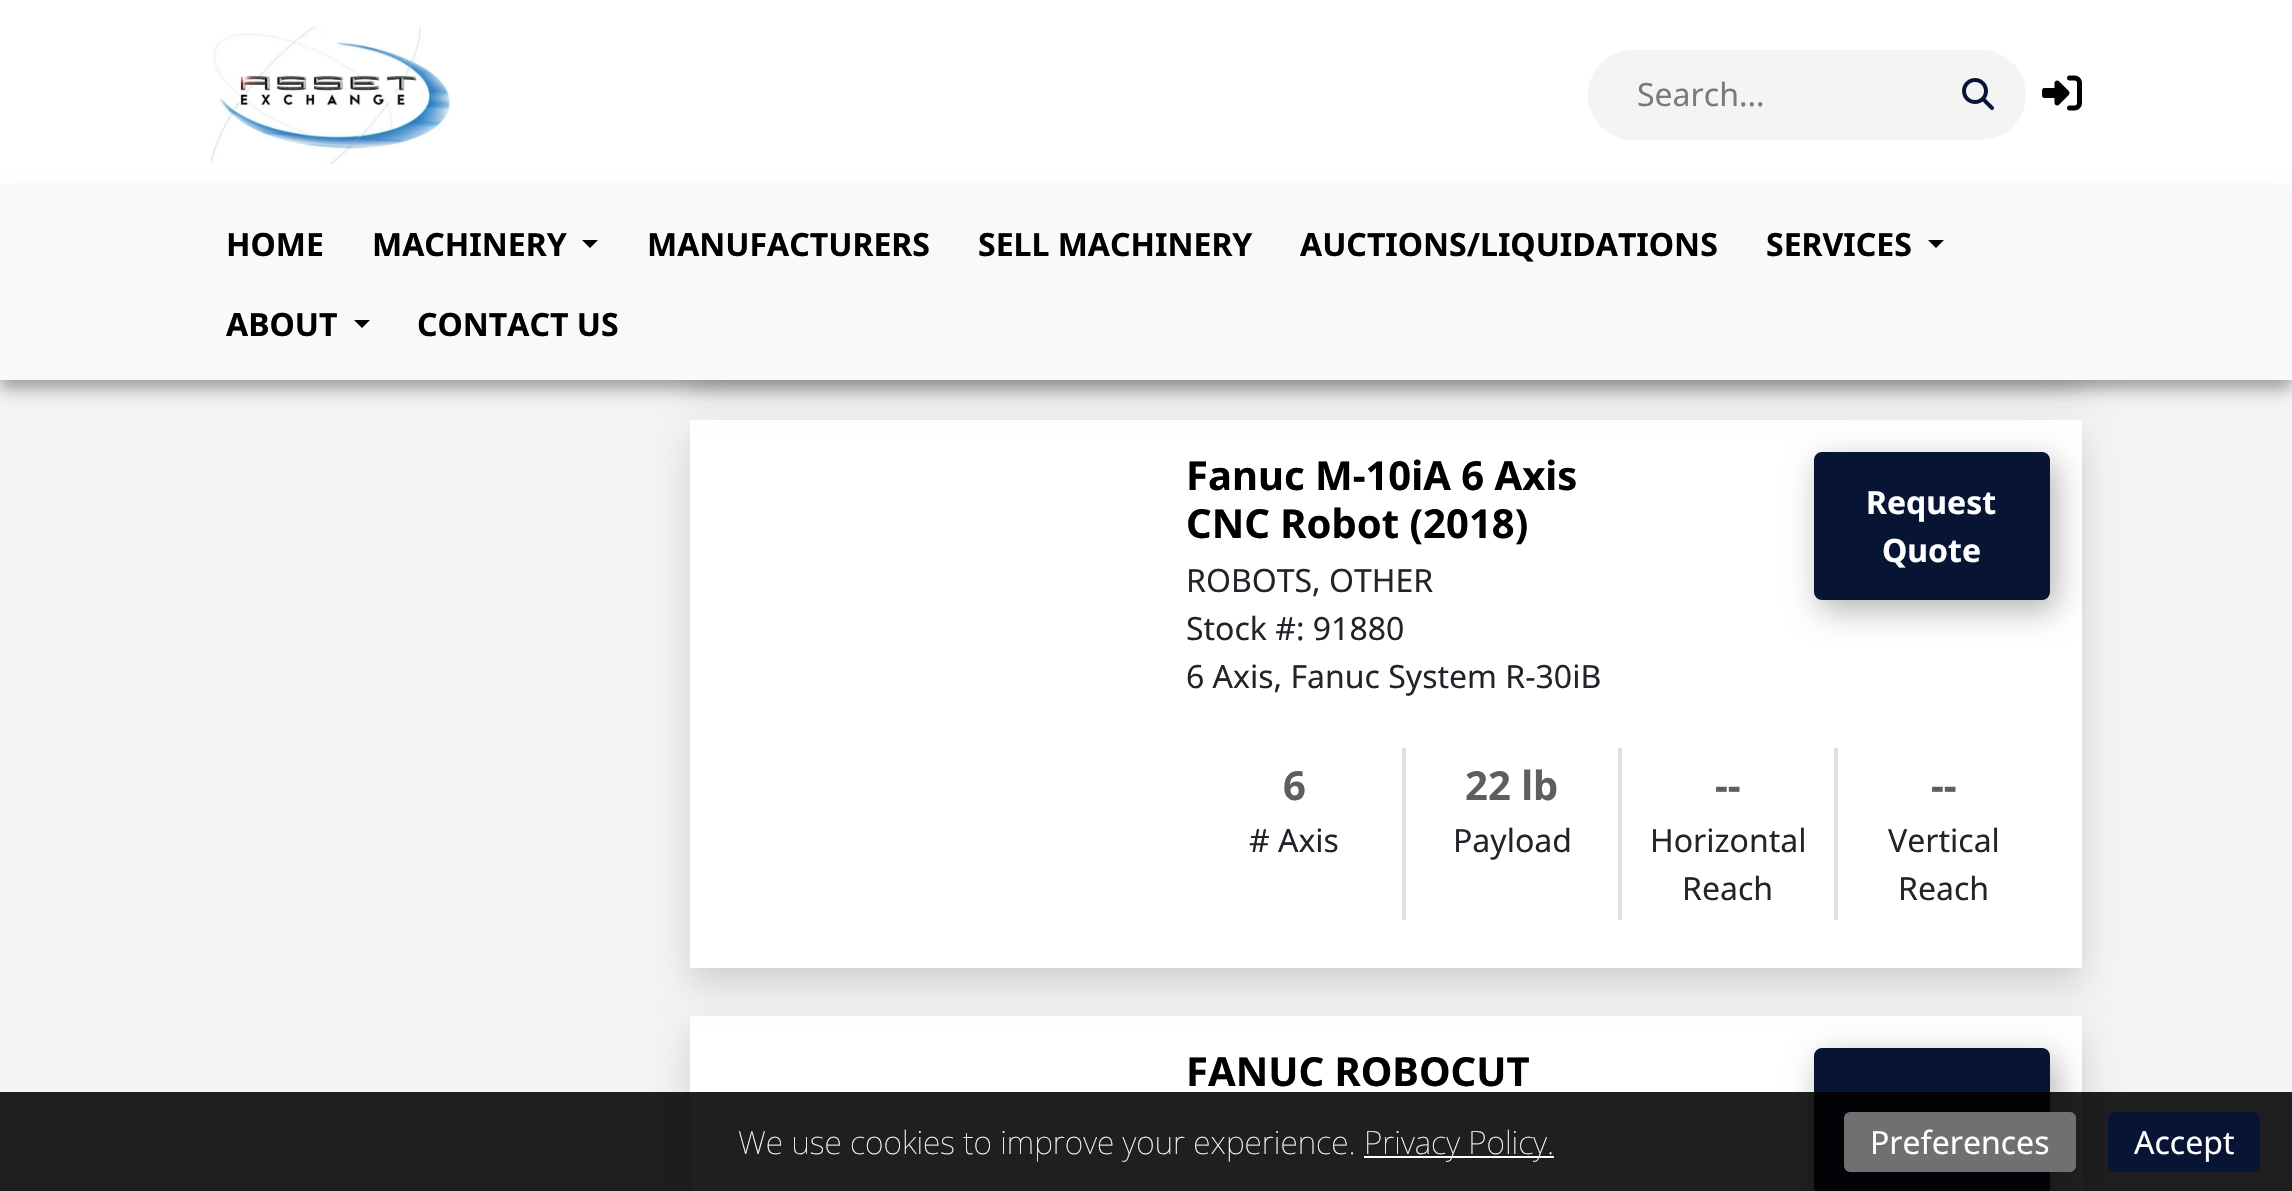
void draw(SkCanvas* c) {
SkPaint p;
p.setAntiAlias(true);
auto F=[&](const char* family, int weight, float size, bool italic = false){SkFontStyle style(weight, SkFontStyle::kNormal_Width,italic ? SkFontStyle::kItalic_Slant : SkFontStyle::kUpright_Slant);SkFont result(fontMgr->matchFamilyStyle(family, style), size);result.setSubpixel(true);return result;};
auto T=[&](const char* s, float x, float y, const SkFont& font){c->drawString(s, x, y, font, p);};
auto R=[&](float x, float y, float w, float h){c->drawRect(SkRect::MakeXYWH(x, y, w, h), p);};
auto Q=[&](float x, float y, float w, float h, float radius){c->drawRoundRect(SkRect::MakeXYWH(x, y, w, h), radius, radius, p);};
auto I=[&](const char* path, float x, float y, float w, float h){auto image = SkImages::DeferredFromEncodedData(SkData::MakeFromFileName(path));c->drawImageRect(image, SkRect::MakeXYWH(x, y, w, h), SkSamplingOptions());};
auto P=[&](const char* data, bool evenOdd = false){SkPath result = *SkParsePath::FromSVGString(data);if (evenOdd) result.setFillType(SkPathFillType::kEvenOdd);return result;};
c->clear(0xfff4f4f4);
p.setColor(0x33000000);
p.setMaskFilter(SkMaskFilter::MakeBlur(kNormal_SkBlurStyle, 8));
c->drawRect(SkRect::MakeXYWH(0,8,2292,380),p);
p.setMaskFilter(nullptr);
p.setColor(0xffffffff);
R(690,420,1392,548);
p.setColor(0x26000000);
p.setMaskFilter(SkMaskFilter::MakeBlur(kNormal_SkBlurStyle, 16));
c->drawRect(SkRect::MakeXYWH(690,-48,1392,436),p);
p.setMaskFilter(nullptr);
p.setColor(0xffffffff);
R(0,0,2292,188);
I("1.png",210,24,241,140);
p.setColor(0xfff4f4f4);
Q(1588,50,438,90,45);
auto f1 = F("Noto Sans",400,32);
p.setColor(0xff7a7a7a);
T("Search...",1637,106,f1);
I("2.png",1962,78,32,32);
I("3.png",2042,75,40,36);
p.setColor(0x33000000);
p.setMaskFilter(SkMaskFilter::MakeBlur(kNormal_SkBlurStyle, 8));
c->drawRect(SkRect::MakeXYWH(0,196,2292,192),p);
p.setMaskFilter(nullptr);
p.setColor(0xfff8f9fb);
R(0,188,2292,192);
auto f2 = F("Noto Sans",700,32);
p.setColor(0xff000000);
T("HOME",226,256,f2);
T("MACHINERY",372,256,f2);
c->drawPath(P("M582 240h16l-8 8z"),p);
T("MANUFACTURERS",647,256,f2);
T("SELL MACHINERY",978,256,f2);
T("AUCTIONS/LIQUIDATIONS",1300,256,f2);
T("SERVICES",1766,256,f2);
c->drawPath(P("M1928 240h16l-8 8z"),p);
T("ABOUT",226,336,f2);
c->drawPath(P("M354 320h16l-8 8z"),p);
T("CONTACT US",417,336,f2);
p.setColor(0xffffffff);
R(690,1016,1392,175);
c->save();
c->clipPath(P("M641 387h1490v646h-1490zm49 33h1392v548h-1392z",true),true);
p.setColor(0x26000000);
p.setMaskFilter(SkMaskFilter::MakeBlur(kNormal_SkBlurStyle, 16));
c->drawRect(SkRect::MakeXYWH(690,436,1392,548),p);
p.setMaskFilter(nullptr);
c->restore();
auto f3 = F("Noto Sans",700,40);
p.setColor(0xff000000);
T("Fanuc M-10iA 6 Axis",1186,490,f3);
T("CNC Robot (2018)",1186,538,f3);
p.setColor(0xff212529);
T("ROBOTS, OTHER",1186,592,f1);
p.setColor(0x4d000000);
p.setMaskFilter(SkMaskFilter::MakeBlur(kNormal_SkBlurStyle, 16));
c->drawRoundRect(SkRect::MakeXYWH(1820,462,236,148),8,8,p);
p.setMaskFilter(nullptr);
p.setColor(0xff081434);
c->drawRoundRect(SkRect::MakeXYWH(1815,453,234,146),7,7,p);
p.setStroke(true);
p.setStrokeWidth(2);
c->drawRoundRect(SkRect::MakeXYWH(1815,453,234,146),7,7,p);
p.setStroke(false);
p.setColor(0xffffffff);
T("Request",1866,514,f2);
T("Quote",1882,562,f2);
p.setColor(0xff212529);
T("Stock #: 91880",1186,640,f1);
T("6 Axis, Fanuc System R-30iB",1186,688,f1);
p.setColor(0xff5e5e5e);
T("6",1283,800,f3);
p.setColor(0xff212529);
T("# Axis",1249,852,f1);
p.setColor(0xffdee2e6);
R(1402,748,4,172);
p.setColor(0xff5e5e5e);
T("22 lb",1465,800,f3);
p.setColor(0xff212529);
T("Payload",1453,852,f1);
p.setColor(0xffdee2e6);
R(1618,748,4,172);
p.setColor(0xff5e5e5e);
T("--",1715,800,f3);
p.setColor(0xff212529);
T("Horizontal",1650,852,f1);
T("Reach",1682,900,f1);
p.setColor(0xffdee2e6);
R(1834,748,4,172);
p.setColor(0xff5e5e5e);
T("--",1931,800,f3);
p.setColor(0xff212529);
T("Vertical",1888,852,f1);
T("Reach",1898,900,f1);
c->save();
c->clipPath(P("M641 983h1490v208h-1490zm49 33h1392v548h-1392z",true),true);
p.setColor(0x26000000);
p.setMaskFilter(SkMaskFilter::MakeBlur(kNormal_SkBlurStyle, 16));
c->drawRect(SkRect::MakeXYWH(690,1032,1392,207),p);
p.setMaskFilter(nullptr);
c->restore();
p.setColor(0xff000000);
T("FANUC ROBOCUT",1186,1086,f3);
p.setColor(0x4d000000);
p.setMaskFilter(SkMaskFilter::MakeBlur(kNormal_SkBlurStyle, 16));
c->drawRoundRect(SkRect::MakeXYWH(1820,1058,236,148),8,8,p);
p.setMaskFilter(nullptr);
p.setColor(0xff081434);
c->drawRoundRect(SkRect::MakeXYWH(1815,1049,234,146),7,7,p);
p.setStroke(true);
c->drawRoundRect(SkRect::MakeXYWH(1815,1049,234,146),7,7,p);
p.setStroke(false);
p.setColor(0xe0000000);
R(0,1092,2292,99);
auto f4 = F("Noto Sans",100,32);
p.setColor(0xffffffff);
T("We use cookies to improve your experience.",738,1154,f4);
R(1364,1156,190,2);
T("Privacy Policy.",1364,1154,f4);
p.setColor(0xff707071);
c->drawRoundRect(SkRect::MakeXYWH(1845,1113,230,58),5,5,p);
p.setStroke(true);
c->drawRoundRect(SkRect::MakeXYWH(1845,1113,230,58),5,5,p);
p.setStroke(false);
p.setColor(0xffffffff);
T("Preferences",1870,1154,f1);
p.setColor(0xff081434);
c->drawRoundRect(SkRect::MakeXYWH(2109,1113,150,58),5,5,p);
p.setStroke(true);
c->drawRoundRect(SkRect::MakeXYWH(2109,1113,150,58),5,5,p);
p.setStroke(false);
p.setColor(0xffffffff);
T("Accept",2134,1154,f1);
}
